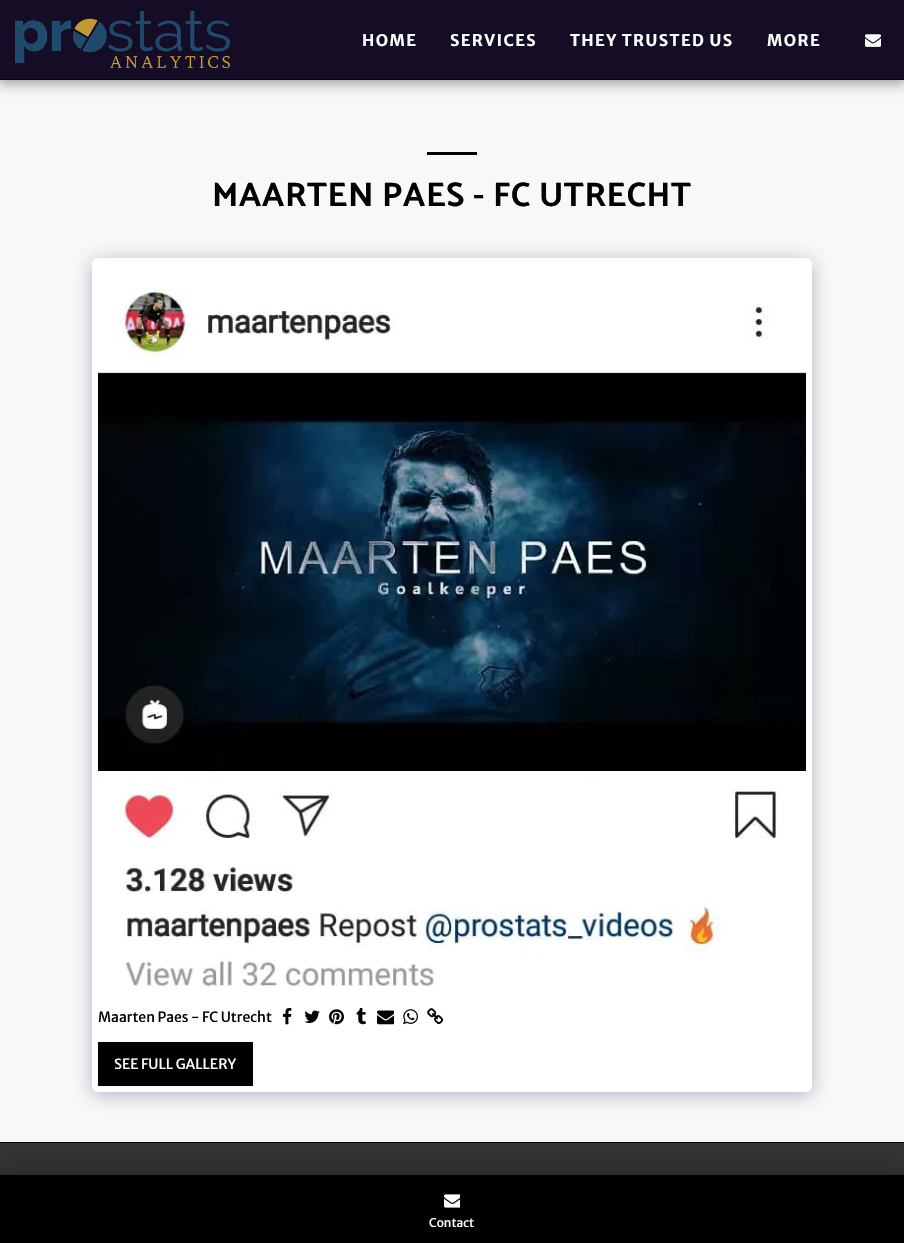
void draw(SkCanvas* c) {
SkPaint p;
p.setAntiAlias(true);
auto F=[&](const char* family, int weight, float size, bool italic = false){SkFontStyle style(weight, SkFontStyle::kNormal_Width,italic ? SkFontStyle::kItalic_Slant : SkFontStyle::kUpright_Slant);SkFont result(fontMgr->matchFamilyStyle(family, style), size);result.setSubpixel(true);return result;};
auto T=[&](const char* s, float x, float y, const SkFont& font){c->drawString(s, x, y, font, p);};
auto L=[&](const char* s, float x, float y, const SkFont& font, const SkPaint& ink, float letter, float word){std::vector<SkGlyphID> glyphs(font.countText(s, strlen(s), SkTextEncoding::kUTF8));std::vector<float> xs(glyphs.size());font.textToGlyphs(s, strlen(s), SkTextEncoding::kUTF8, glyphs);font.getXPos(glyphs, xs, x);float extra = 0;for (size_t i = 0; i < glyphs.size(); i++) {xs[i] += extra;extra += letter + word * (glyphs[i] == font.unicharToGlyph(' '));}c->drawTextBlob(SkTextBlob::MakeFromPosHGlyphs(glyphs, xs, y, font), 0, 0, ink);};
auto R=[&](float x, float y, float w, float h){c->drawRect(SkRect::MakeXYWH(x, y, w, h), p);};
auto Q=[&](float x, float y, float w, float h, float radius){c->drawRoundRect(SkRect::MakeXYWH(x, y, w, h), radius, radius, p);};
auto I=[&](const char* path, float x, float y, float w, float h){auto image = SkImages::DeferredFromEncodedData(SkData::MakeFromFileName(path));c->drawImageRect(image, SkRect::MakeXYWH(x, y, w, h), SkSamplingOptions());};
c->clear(0xff333333);
p.setColor(0xfff7f9f8);
R(0,80,904,1062);
p.setColor(0x59000000);
p.setMaskFilter(SkMaskFilter::MakeBlur(kNormal_SkBlurStyle, 6));
c->drawRect(SkRect::MakeXYWH(-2,0,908,84),p);
p.setMaskFilter(nullptr);
p.setColor(0xff150d25);
R(0,0,904,79);
p.setColor(0xff06040a);
R(0,79,904,1);
I("1.png",15,11,215,57);
auto f1 = F("Merriweather Sans",700,16);
p.setColor(0xffffffff);
L("HOME",362,46,f1,p,1.4,0);
L("SERVICES",450,46,f1,p,1.4,0);
L("THEY TRUSTED US",570,46,f1,p,1.4,0);
L("MORE",767,46,f1,p,1.4,0);
I("2.png",865,34,16,13);
p.setColor(0xff000000);
R(427,152,50,3);
auto f2 = F("Catamaran",700,34.2);
L("MAARTEN PAES - FC UTRECHT",212,206,f2,p,.5,0);
p.setColor(0x664d3f7a);
p.setMaskFilter(SkMaskFilter::MakeBlur(kNormal_SkBlurStyle, 10));
c->drawRoundRect(SkRect::MakeXYWH(92,261,720,834),6,6,p);
p.setMaskFilter(nullptr);
p.setColor(0xffffffff);
Q(92,258,720,834,6);
I("3.png",98,287,708,700);
auto f3 = F("Merriweather Sans",400,14);
p.setColor(0xff000000);
T("Maarten Paes - FC Utrecht",98,1022,f3);
I("4.png",282,1008,10,17);
I("5.png",304,1010,16,13);
I("6.png",329,1009,15,16);
I("7.png",356,1008,10,17);
I("8.png",377,1010,17,15);
I("9.png",403,1009,15,16);
I("10.png",427,1008,16,17);
R(98,1042,155,44);
p.setColor(0xffffffff);
T("SEE FULL GALLERY",114,1069,f3);
p.setColor(0xff06040a);
R(0,1142,904,1);
p.setColor(0x4f000000);
p.setMaskFilter(SkMaskFilter::MakeBlur(kNormal_SkBlurStyle, 10));
c->drawRect(SkRect::MakeXYWH(0,1175,904,68),p);
p.setMaskFilter(nullptr);
p.setColor(0xff000000);
R(0,1175,904,68);
I("11.png",444,1194,16,14);
auto f4 = F("Merriweather Sans",400,12);
p.setColor(0xffffffff);
T("Contact",429,1227,f4);
}
